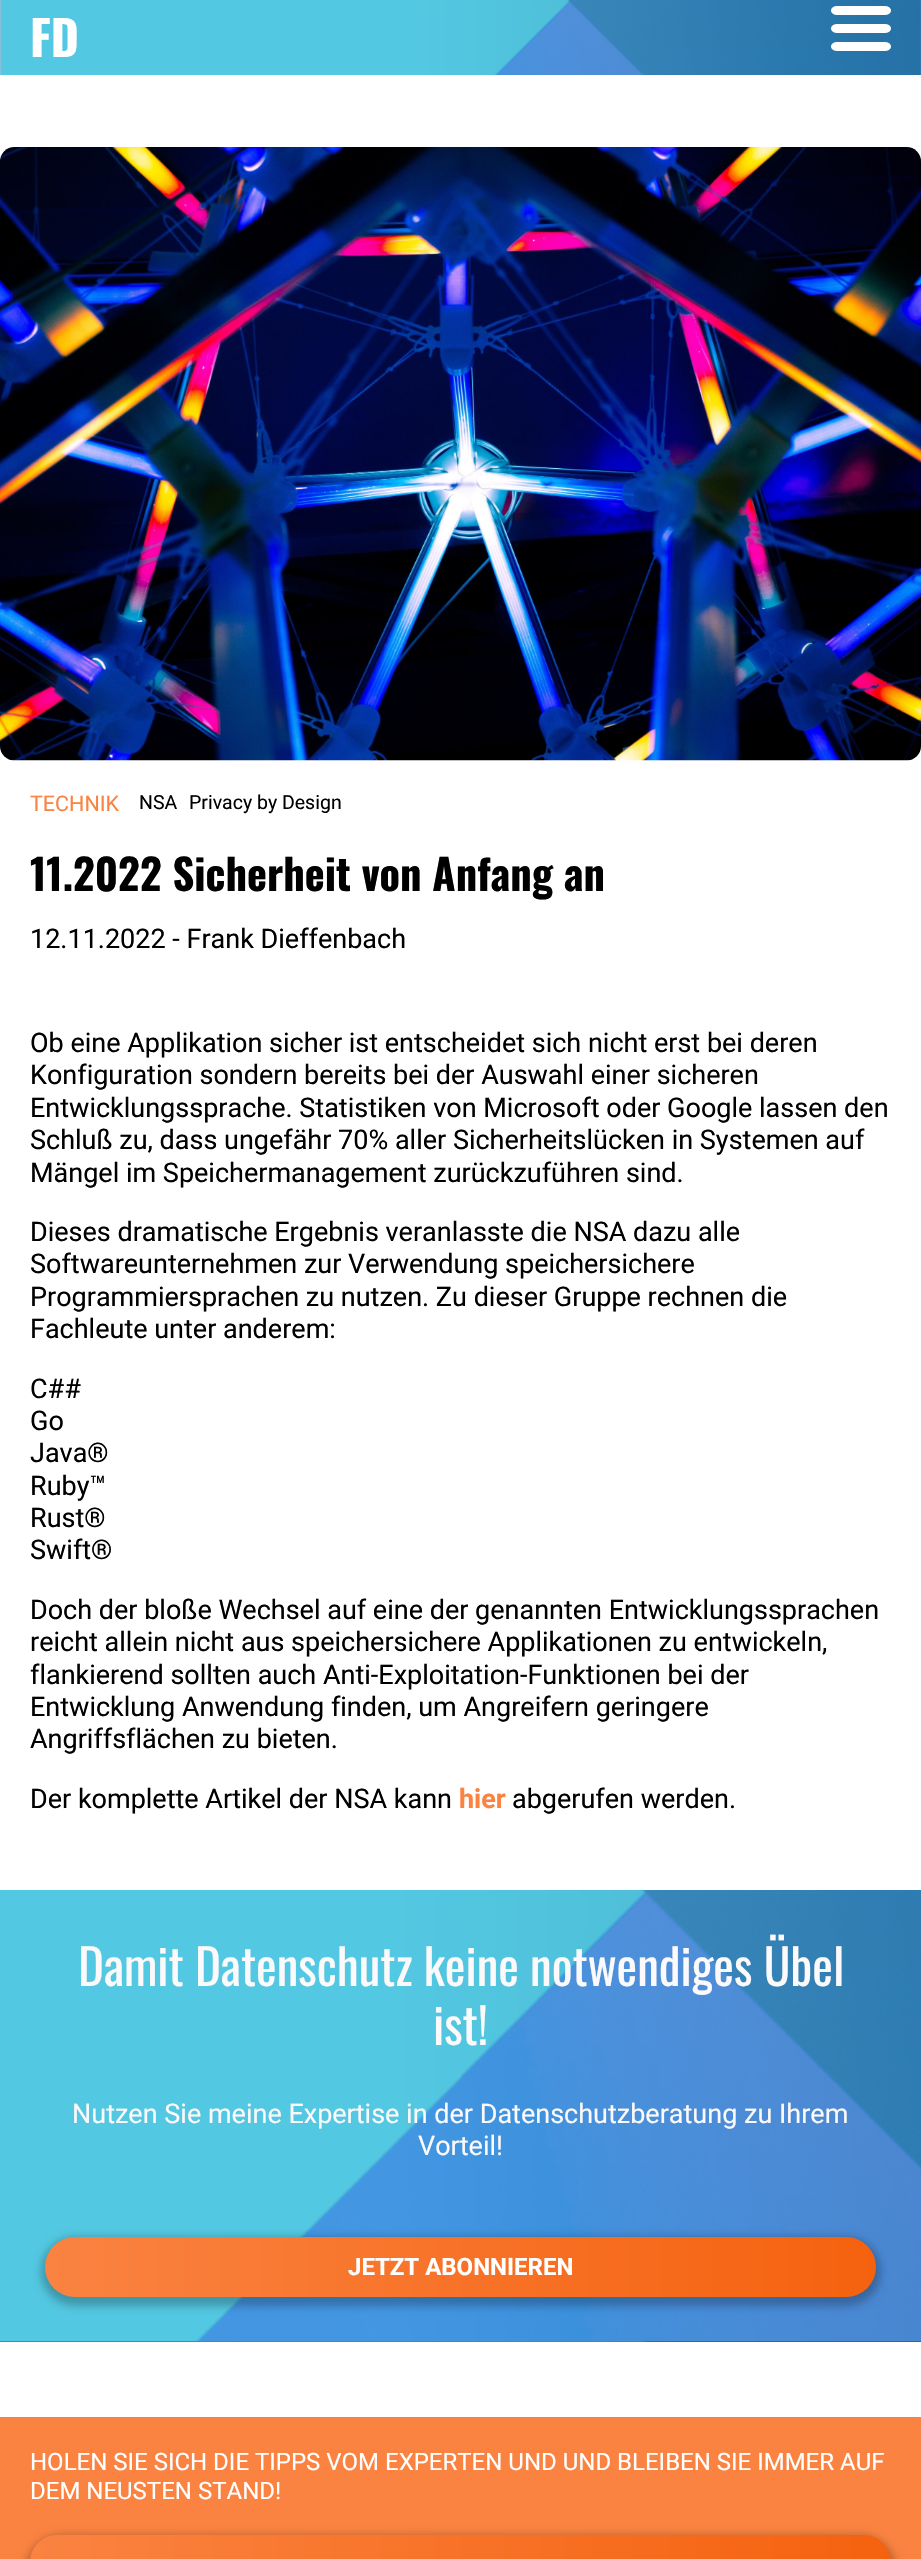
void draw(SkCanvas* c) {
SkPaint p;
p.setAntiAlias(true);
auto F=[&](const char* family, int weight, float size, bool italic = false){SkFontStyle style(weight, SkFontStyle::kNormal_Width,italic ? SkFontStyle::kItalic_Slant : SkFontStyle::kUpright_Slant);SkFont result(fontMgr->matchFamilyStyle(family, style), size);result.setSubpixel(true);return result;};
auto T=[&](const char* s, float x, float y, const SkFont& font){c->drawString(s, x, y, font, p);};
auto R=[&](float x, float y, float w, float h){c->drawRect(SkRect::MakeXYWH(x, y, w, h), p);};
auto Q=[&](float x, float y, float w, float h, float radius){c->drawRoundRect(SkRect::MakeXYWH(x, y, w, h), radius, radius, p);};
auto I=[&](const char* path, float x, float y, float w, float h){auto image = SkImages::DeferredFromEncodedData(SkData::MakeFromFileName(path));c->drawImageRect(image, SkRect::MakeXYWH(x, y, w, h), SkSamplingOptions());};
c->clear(0xffffffff);
I("1.png",0,0,921,75);
auto f1 = F("Oswald",700,48);
p.setColor(0xffffffff);
T("FD",30,57,f1);
I("2.png",831,6,60,45);
I("3.png",0,147,921,614);
auto f2 = F("Roboto",400,21.5);
p.setColor(0xfffa8341);
T("TECHNIK",30,811,f2);
auto f3 = F("Roboto",400,19.5);
p.setColor(0xff000000);
T("NSA",139,809,f3);
T("Privacy by Design",189,809,f3);
auto f4 = F("Oswald",700,42.4);
T("11.2022 Sicherheit von Anfang an",30,891,f4);
auto f5 = F("Roboto",400,27);
T("12.11.2022 - Frank Dieffenbach",30,948,f5);
T("Ob eine Applikation sicher ist entscheidet sich nicht erst bei deren",30,1052,f5);
T("Konfiguration sondern bereits bei der Auswahl einer sicheren",30,1084,f5);
T("Entwicklungssprache. Statistiken von Microsoft oder Google lassen den",30,1117,f5);
T("Schluß zu, dass ungefähr 70% aller Sicherheitslücken in Systemen auf",30,1149,f5);
T("Mängel im Speichermanagement zurückzuführen sind.",30,1182,f5);
T("Dieses dramatische Ergebnis veranlasste die NSA dazu alle",30,1241,f5);
T("Softwareunternehmen zur Verwendung speichersichere",30,1273,f5);
T("Programmiersprachen zu nutzen. Zu dieser Gruppe rechnen die",30,1306,f5);
T("Fachleute unter anderem:",30,1338,f5);
T("C##",30,1398,f5);
T("Go",30,1430,f5);
T("Java®",30,1462,f5);
T("Ruby™",30,1495,f5);
T("Rust®",30,1527,f5);
T("Swift®",30,1559,f5);
T("Doch der bloße Wechsel auf eine der genannten Entwicklungssprachen",30,1619,f5);
T("reicht allein nicht aus speichersichere Applikationen zu entwickeln,",30,1651,f5);
T("flankierend sollten auch Anti-Exploitation-Funktionen bei der",30,1684,f5);
T("Entwicklung Anwendung finden, um Angreifern geringere",30,1716,f5);
T("Angriffsflächen zu bieten.",30,1748,f5);
T("Der komplette Artikel der NSA kann",30,1808,f5);
auto f6 = F("Roboto",700,27);
p.setColor(0xfffa8341);
T("hier",459,1808,f6);
p.setColor(0xff000000);
T("abgerufen werden.",512,1808,f5);
p.setColor(0xff00638c);
R(0,2341,921,1);
I("4.png",0,1890,921,452);
auto f7 = F("Oswald",400,49.1);
p.setColor(0xfffbf9f9);
T("Damit Datenschutz keine notwendiges Übel",78,1986,f7);
T("ist!",433,2045,f7);
T("Nutzen Sie meine Expertise in der Datenschutzberatung zu Ihrem",72,2123,f5);
T("Vorteil!",418,2155,f5);
p.setColor(0x40000000);
p.setMaskFilter(SkMaskFilter::MakeBlur(kNormal_SkBlurStyle, 4.5));
c->drawRoundRect(SkRect::MakeXYWH(41,2237,840,69),34.5,34.5,p);
p.setMaskFilter(nullptr);
{
const SkColor colors[] = {0xfffa8341,0xfff5620f};
const float stops[] = {0,1};
const SkPoint ends[] = {{45,2267}, {876,2267}};
p.setShader(SkGradientShader::MakeLinear(ends, colors, stops, 2, SkTileMode::kClamp));
p.setAlpha(255);
}
Q(45,2237,831,60,30);
auto f8 = F("Roboto",700,24);
p.setShader(nullptr);
p.setColor(0xffffffff);
T("JETZT ABONNIEREN",348,2275,f8);
p.setColor(0xfffa8341);
R(0,2417,921,142);
auto f9 = F("Roboto",400,24);
p.setColor(0xffffffff);
T("HOLEN SIE SICH DIE TIPPS VOM EXPERTEN UND UND BLEIBEN SIE IMMER AUF",30,2470,f9);
T("DEM NEUSTEN STAND!",30,2499,f9);
p.setColor(0x40000000);
p.setMaskFilter(SkMaskFilter::MakeBlur(kNormal_SkBlurStyle, 4.5));
c->drawRoundRect(SkRect::MakeXYWH(26,2535,870,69),34.5,34.5,p);
p.setMaskFilter(nullptr);
{
const SkColor colors[] = {0xfffa8341,0xfff5620f};
const float stops[] = {0,1};
const SkPoint ends[] = {{30,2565}, {891,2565}};
p.setShader(SkGradientShader::MakeLinear(ends, colors, stops, 2, SkTileMode::kClamp));
p.setAlpha(255);
}
Q(30,2535,861,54,30);
}
